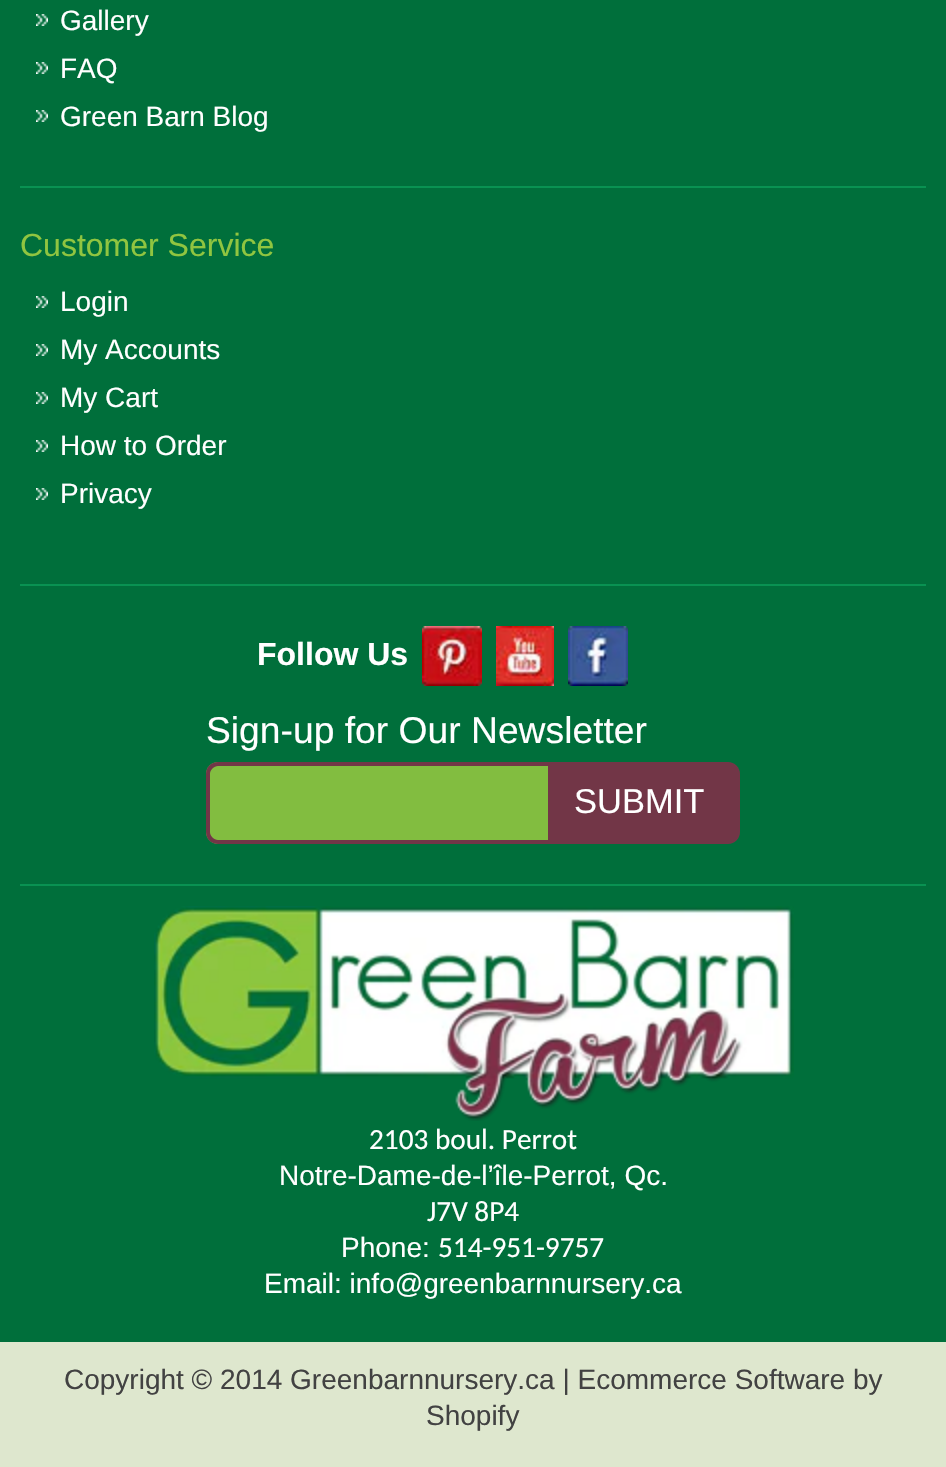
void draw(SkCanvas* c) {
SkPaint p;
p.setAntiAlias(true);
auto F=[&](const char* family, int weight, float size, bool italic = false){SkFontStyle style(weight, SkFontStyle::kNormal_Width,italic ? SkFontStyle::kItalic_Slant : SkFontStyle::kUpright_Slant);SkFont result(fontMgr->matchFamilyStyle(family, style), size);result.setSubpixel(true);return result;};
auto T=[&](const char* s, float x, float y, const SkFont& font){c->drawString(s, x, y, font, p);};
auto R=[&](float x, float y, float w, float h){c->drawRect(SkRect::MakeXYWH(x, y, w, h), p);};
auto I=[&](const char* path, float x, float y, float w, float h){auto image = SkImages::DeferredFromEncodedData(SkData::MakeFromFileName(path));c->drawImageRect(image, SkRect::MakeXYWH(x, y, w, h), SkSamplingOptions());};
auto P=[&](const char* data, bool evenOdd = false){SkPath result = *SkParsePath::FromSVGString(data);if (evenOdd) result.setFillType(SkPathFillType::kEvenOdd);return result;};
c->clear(0xffdee7ce);
p.setColor(0xff006f3b);
R(0,0,946,1342);
p.setColor(0xff099252);
R(20,186,906,2);
I("1.png",36,14,12,12);
auto f1 = F("Liberation Sans",400,28);
p.setColor(0xffffffff);
T("Gallery",60,30,f1);
I("1.png",36,62,12,12);
T("FAQ",60,78,f1);
I("1.png",36,110,12,12);
T("Green Barn Blog",60,126,f1);
auto f2 = F("Liberation Sans",400,32);
p.setColor(0xff90c540);
T("Customer Service",20,256,f2);
I("1.png",36,296,12,12);
p.setColor(0xffffffff);
T("Login",60,311,f1);
I("1.png",36,344,12,12);
T("My Accounts",60,359,f1);
I("1.png",36,392,12,12);
T("My Cart",60,407,f1);
I("1.png",36,440,12,12);
T("How to Order",60,455,f1);
I("1.png",36,488,12,12);
T("Privacy",60,503,f1);
p.setColor(0xff099252);
R(20,584,906,2);
R(20,884,906,2);
auto f3 = F("Liberation Sans",700,32);
p.setColor(0xffffffff);
T("Follow Us",257,665,f3);
I("2.png",422,626,60,60);
I("3.png",496,626,58,60);
I("4.png",568,626,60,60);
auto f4 = F("Liberation Sans",400,37.25);
T("Sign-up for Our Newsletter",206,743,f4);
p.setColor(0xff82bd40);
c->drawPath(P("M218 762h330v82h-330c-6.5 0-12-5.5-12-12v-58c0-6.5 5.5-12 12-12z"),p);
p.setColor(0xff723647);
c->drawPath(P("M218 762h330v82h-330c-7 0-12-5-12-12v-58c0-7 5-12 12-12zm0 4h330v74h-330c-4 0-8-4-8-8v-58c0-4 4-8 8-8z",true),p);
c->drawPath(P("M548 762h180c6.5 0 12 5.5 12 12v58c0 6.5-5.5 12-12 12h-180z"),p);
auto f5 = F("Liberation Sans",400,34.5);
p.setColor(0xffffffff);
T("SUBMIT",574,813,f5);
I("5.png",154,906,640,215);
auto f6 = F("Carlito",400,29.25);
T("2103 boul. Perrot",369,1149,f6);
T("Notre-Dame-de-l’île-Perrot, Qc.",279,1185,f1);
T("J7V 8P4",427,1221,f6);
T("Phone:",341,1257,f1);
T("514-951-9757",438,1257,f6);
T("Email: info@greenbarnnursery.ca",264,1293,f1);
p.setColor(0xff424242);
T("Copyright © 2014 Greenbarnnursery.ca | Ecommerce Software by",64,1389,f1);
T("Shopify",426,1425,f1);
}
